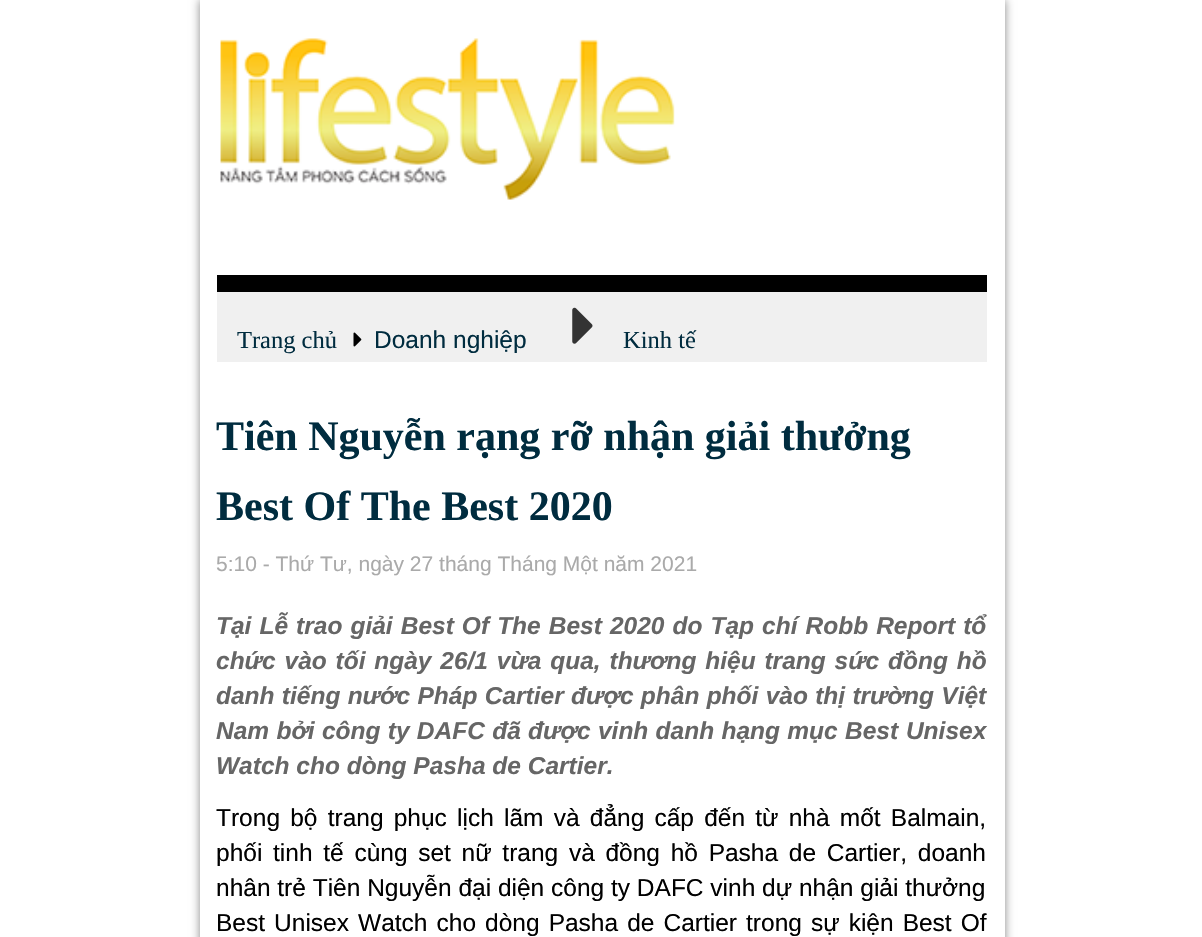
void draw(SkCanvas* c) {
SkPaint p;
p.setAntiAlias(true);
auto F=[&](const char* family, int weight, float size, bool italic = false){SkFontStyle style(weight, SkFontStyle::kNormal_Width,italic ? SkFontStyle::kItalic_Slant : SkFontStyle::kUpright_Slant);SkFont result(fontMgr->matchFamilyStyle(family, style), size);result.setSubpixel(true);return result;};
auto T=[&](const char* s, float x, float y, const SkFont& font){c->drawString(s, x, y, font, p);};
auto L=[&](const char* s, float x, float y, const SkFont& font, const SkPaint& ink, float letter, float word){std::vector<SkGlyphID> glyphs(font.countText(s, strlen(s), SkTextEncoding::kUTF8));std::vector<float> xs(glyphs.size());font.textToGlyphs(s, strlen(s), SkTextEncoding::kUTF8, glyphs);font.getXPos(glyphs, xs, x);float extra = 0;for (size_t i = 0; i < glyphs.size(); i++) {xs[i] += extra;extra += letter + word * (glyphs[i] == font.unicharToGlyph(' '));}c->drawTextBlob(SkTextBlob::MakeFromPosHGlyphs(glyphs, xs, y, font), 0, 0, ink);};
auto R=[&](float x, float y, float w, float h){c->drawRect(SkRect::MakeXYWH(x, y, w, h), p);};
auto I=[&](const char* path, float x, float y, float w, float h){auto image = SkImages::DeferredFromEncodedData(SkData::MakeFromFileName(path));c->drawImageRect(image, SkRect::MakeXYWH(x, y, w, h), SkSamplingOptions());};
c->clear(0xffffffff);
p.setColor(0xff888888);
p.setMaskFilter(SkMaskFilter::MakeBlur(kNormal_SkBlurStyle, 4.5));
c->drawRect(SkRect::MakeXYWH(200,0,805,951),p);
p.setMaskFilter(nullptr);
p.setColor(0xffffffff);
R(200,0,805,937);
I("1.png",220,38,455,162);
p.setColor(0xff000000);
R(217,275,770,17);
p.setColor(0xfff0f0f0);
R(217,292,770,70);
auto f1 = F("Liberation Serif",400,24.5);
p.setColor(0xff002c3f);
T("Trang chủ",237,348,f1);
I("2.png",353,332,9,15);
auto f2 = F("Liberation Sans",400,24.5);
T("Doanh nghiệp",374,348,f2);
I("3.png",572,307,21,37);
T("Kinh tế",623,348,f1);
auto f3 = F("Liberation Serif",700,42);
T("Tiên Nguyễn rạng rỡ nhận giải thưởng",216,450,f3);
T("Best Of The Best 2020",216,520,f3);
auto f4 = F("Liberation Sans",400,21);
p.setColor(0xffaaaaaa);
T("5:10 - Thứ Tư, ngày 27 tháng Tháng Một năm 2021",216,571,f4);
auto f5 = F("Liberation Sans",700,24.5,true);
p.setColor(0xff666666);
L("Tại Lễ trao giải Best Of The Best 2020 do Tạp chí Robb Report tổ",216,634,f5,p,0,1.25);
L("chức vào tối ngày 26/1 vừa qua, thương hiệu trang sức đồng hồ",216,669,f5,p,0,2);
L("danh tiếng nước Pháp Cartier được phân phối vào thị trường Việt",216,704,f5,p,0,.5);
L("Nam bởi công ty DAFC đã được vinh danh hạng mục",216,739,f5,p,0,.5);
L("Best Unisex",845,739,f5,p,0,1);
T("Watch cho dòng Pasha de Cartier.",216,774,f5);
p.setColor(0xff000000);
L("Trong bộ trang phục lịch lãm và đẳng cấp đến từ nhà mốt Balmain,",216,826,f2,p,0,3.4);
L("phối tinh tế cùng set nữ trang và đồng hồ Pasha de Cartier, doanh",216,861,f2,p,0,3.9);
T("nhân trẻ Tiên Nguyễn đại diện công ty DAFC vinh dự nhận giải thưởng",216,896,f2);
L("Best Unisex Watch cho dòng Pasha de Cartier trong sự kiện Best Of",216,931,f2,p,0,2.25);
}
